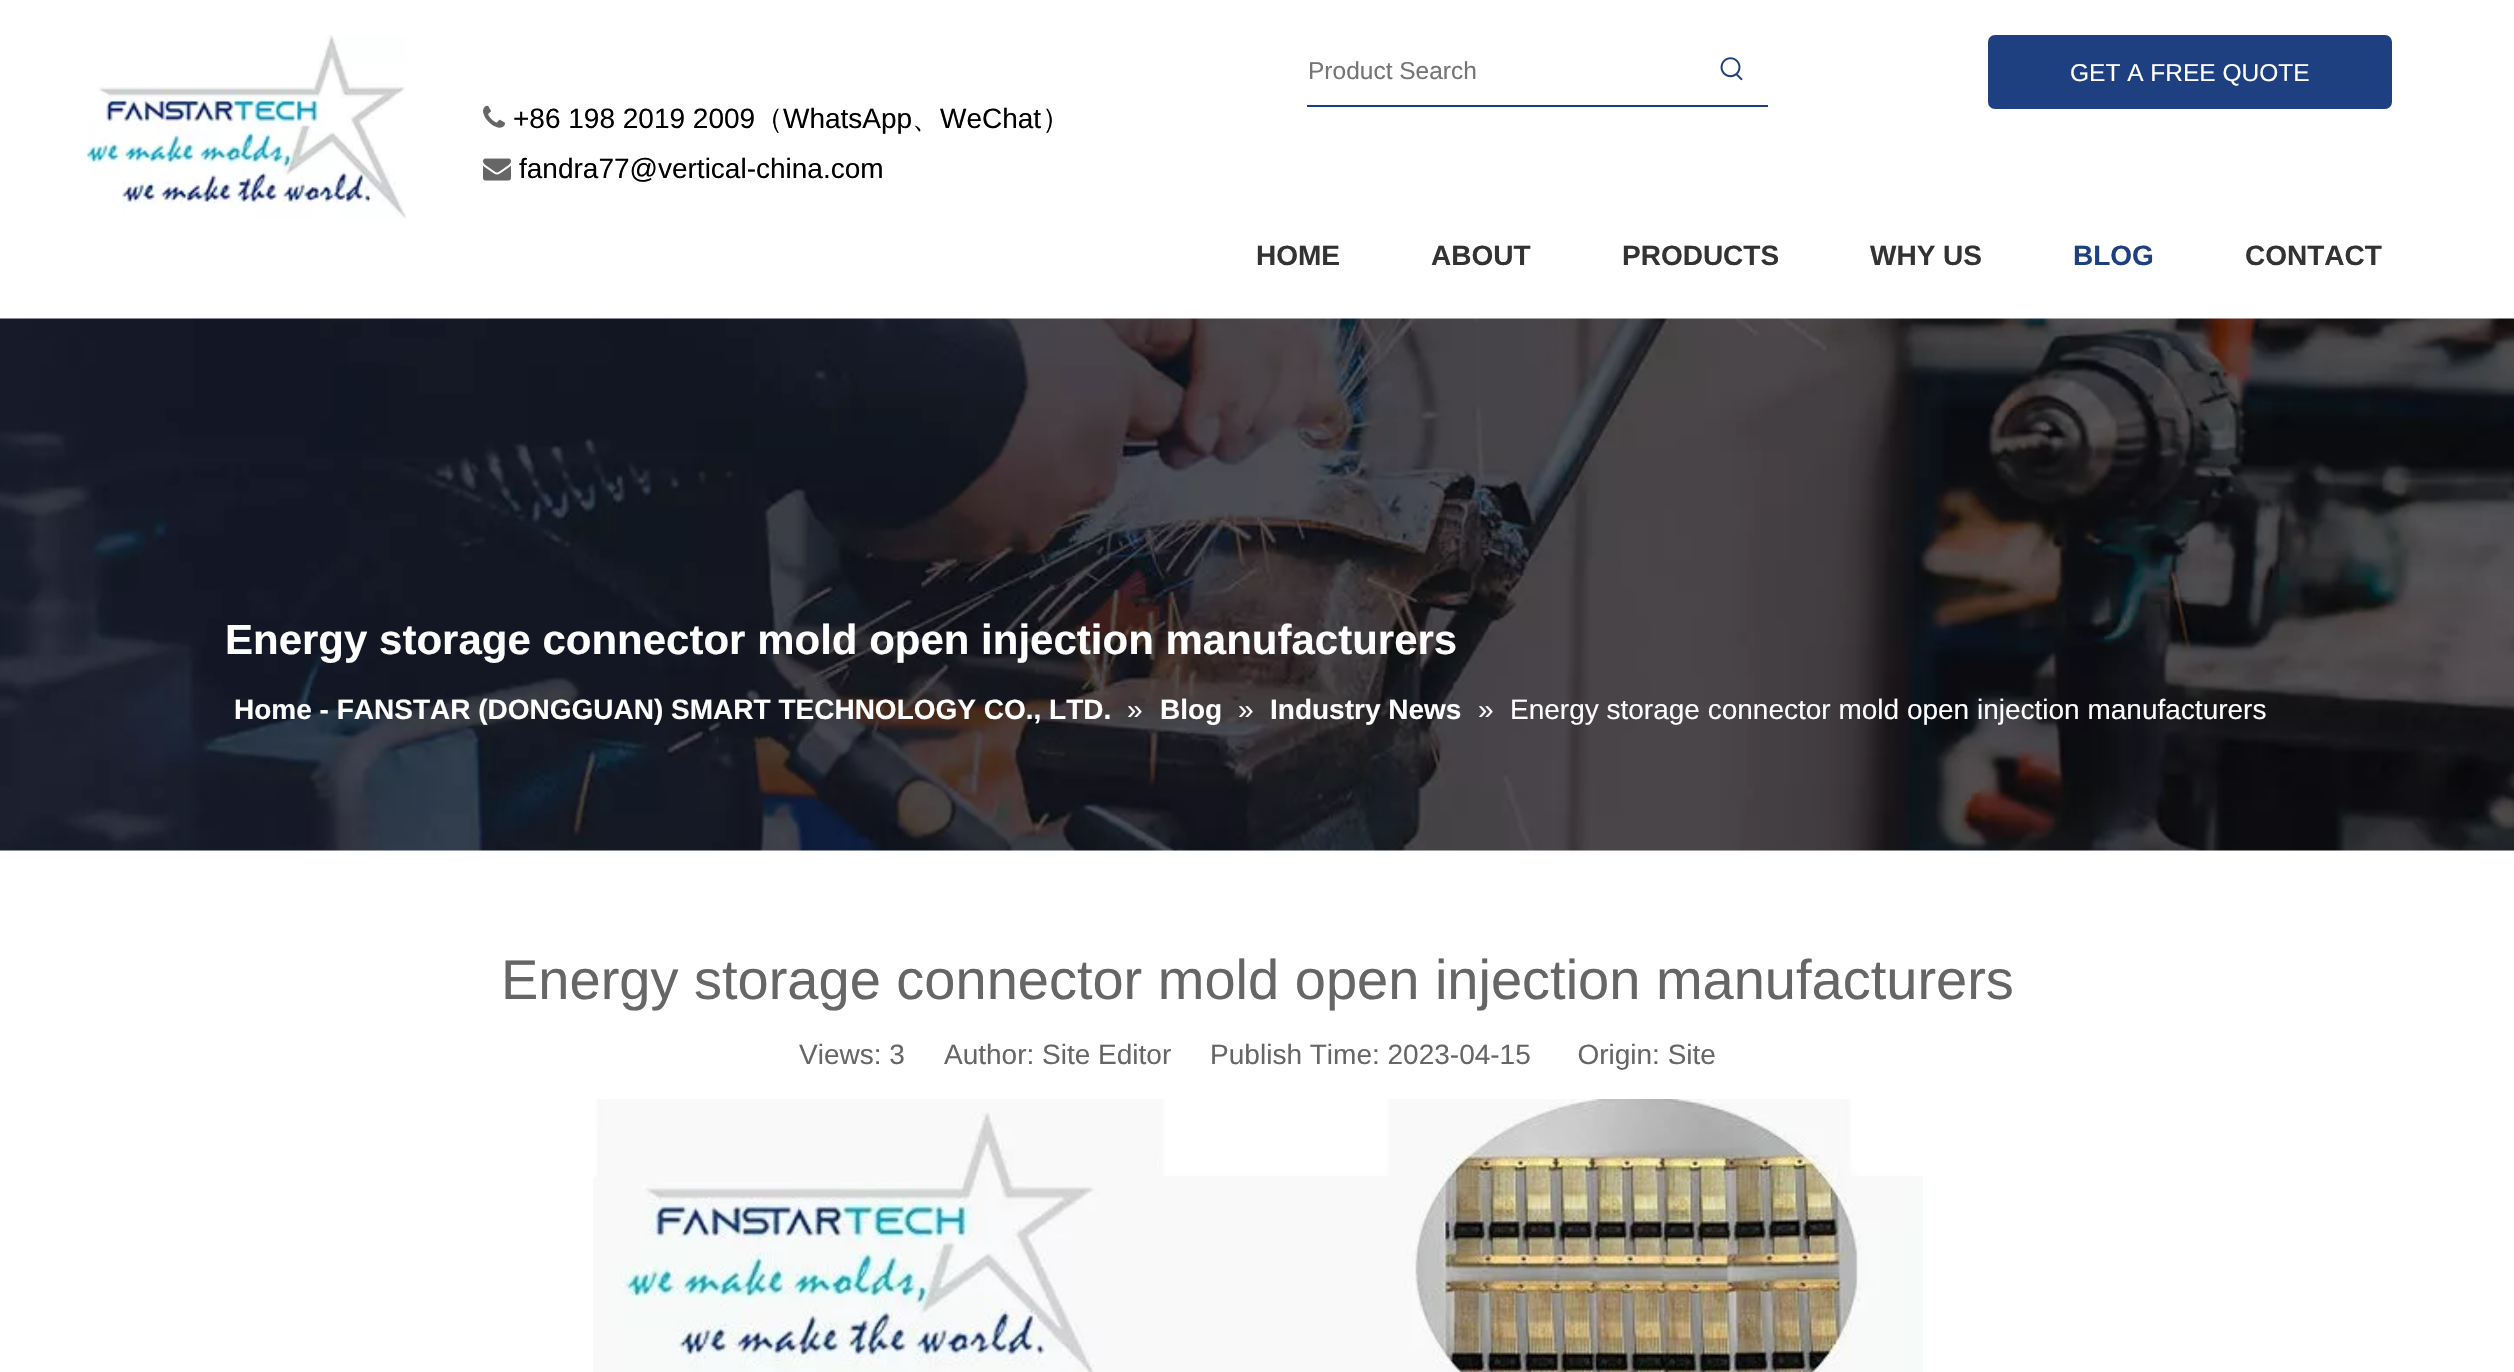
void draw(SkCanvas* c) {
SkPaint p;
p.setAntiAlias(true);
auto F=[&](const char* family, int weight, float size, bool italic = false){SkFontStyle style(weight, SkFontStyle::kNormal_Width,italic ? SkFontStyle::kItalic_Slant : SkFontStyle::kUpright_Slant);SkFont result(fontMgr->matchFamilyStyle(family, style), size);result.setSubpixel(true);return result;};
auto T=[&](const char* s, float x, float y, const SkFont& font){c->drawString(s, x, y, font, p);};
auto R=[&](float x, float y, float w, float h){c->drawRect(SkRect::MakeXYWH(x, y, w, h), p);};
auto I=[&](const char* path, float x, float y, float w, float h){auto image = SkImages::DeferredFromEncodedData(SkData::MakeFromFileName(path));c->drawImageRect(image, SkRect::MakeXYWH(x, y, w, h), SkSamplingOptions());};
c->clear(0xffffffff);
I("1.png",87,35,319,184);
p.setColor(0xff1e4080);
R(1307,105,461,2);
auto f1 = F("Liberation Sans",400,24.5);
p.setColor(0xff757575);
T("Product Search",1308,79,f1);
I("2.png",1720,57,23,24);
p.setColor(0xff1e4080);
c->drawRoundRect(SkRect::MakeXYWH(1989,36,402,72),6,6,p);
p.setStroke(true);
p.setStrokeWidth(2);
c->drawRoundRect(SkRect::MakeXYWH(1989,36,402,72),6,6,p);
p.setStroke(false);
p.setColor(0xffffffff);
T("GET A FREE QUOTE",2070,81,f1);
I("3.png",483,105,22,23);
auto f2 = F("Liberation Sans",400,28);
p.setColor(0xff000000);
T("+86 198 2019 2009",513,128,f2);
auto f3 = F("WenQuanYi Zen Hei",500,28);
T("（",755,128,f3);
T("WhatsApp",783,128,f2);
T("、",912,128,f3);
T("WeChat",940,128,f2);
T("）",1042,128,f3);
I("4.png",483,158,28,23);
T("fandra77@vertical-china.com",519,178,f2);
auto f4 = F("Liberation Sans",700,28);
p.setColor(0xff333333);
T("HOME",1256,265,f4);
T("ABOUT",1431,265,f4);
T("PRODUCTS",1622,265,f4);
T("WHY US",1870,265,f4);
p.setColor(0xff1e4080);
T("BLOG",2073,265,f4);
p.setColor(0xff333333);
T("CONTACT",2245,265,f4);
I("5.png",0,318,2514,533);
auto f5 = F("Liberation Sans",700,42);
p.setColor(0xffffffff);
T("Energy storage connector mold open injection manufacturers",225,654,f5);
T("Home - FANSTAR (DONGGUAN) SMART TECHNOLOGY CO., LTD.",234,719,f4);
T("»",1127,719,f2);
T("Blog",1160,719,f4);
T("»",1238,719,f2);
T("Industry News",1270,719,f4);
T("»",1478,719,f2);
T("Energy storage connector mold open injection manufacturers",1510,719,f2);
auto f6 = F("Liberation Sans",400,56);
p.setColor(0xff666666);
T("Energy storage connector mold open injection manufacturers",501,999,f6);
T("Views: 3",799,1064,f2);
T("Author: Site Editor     Publish Time: 2023-04-15      Origin: Site",944,1064,f2);
I("6.png",593,1099,1330,273);
}
